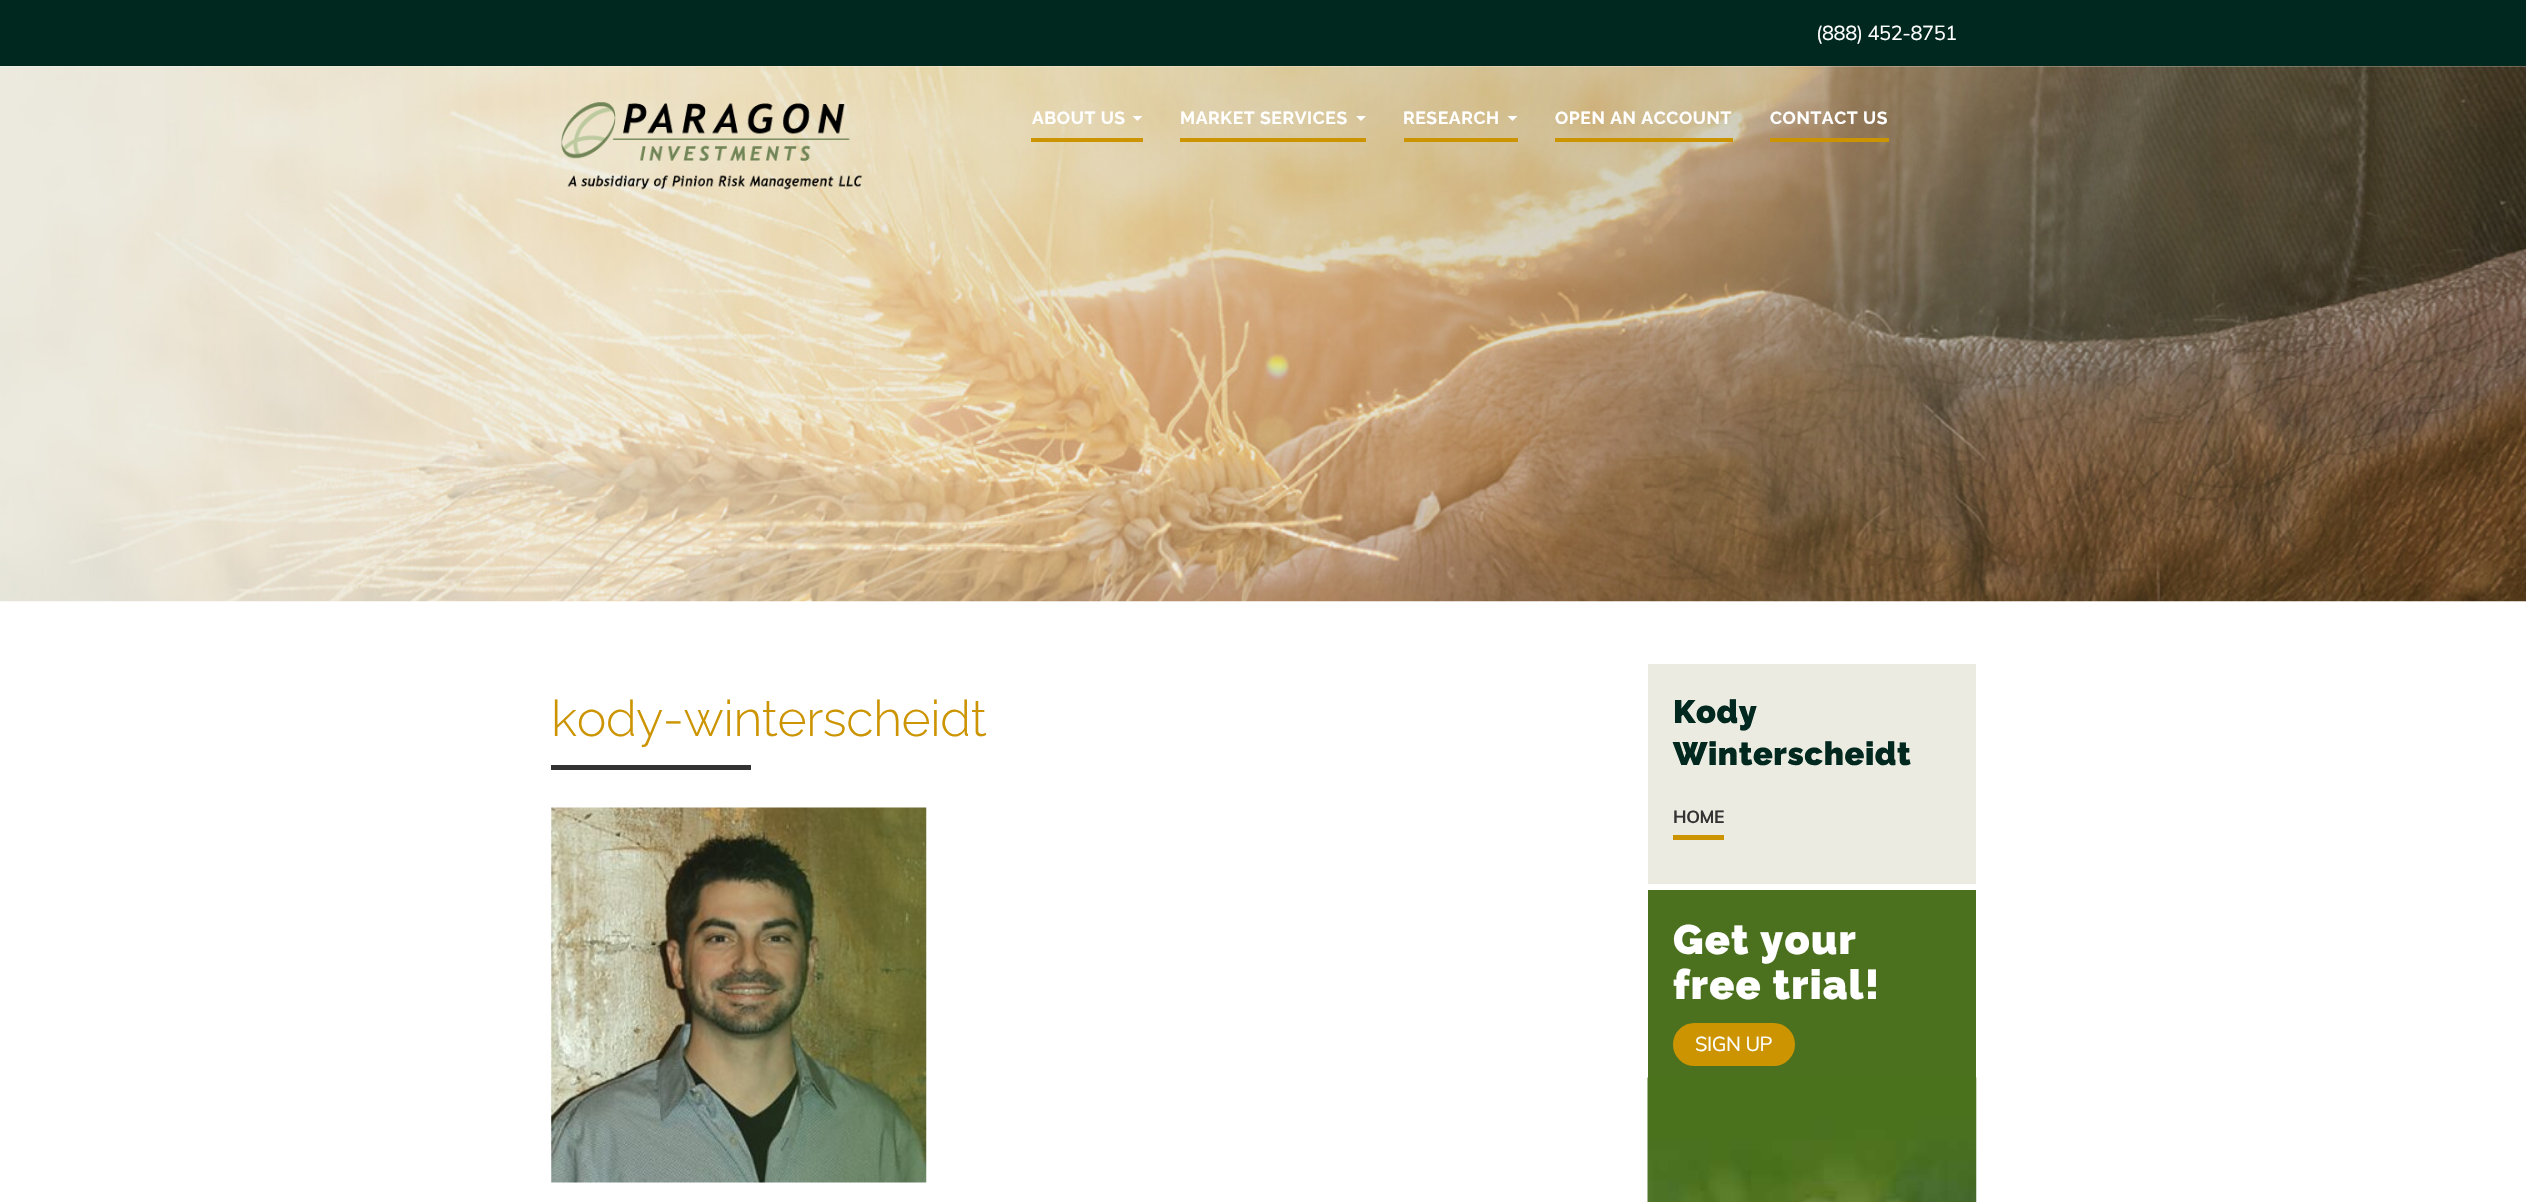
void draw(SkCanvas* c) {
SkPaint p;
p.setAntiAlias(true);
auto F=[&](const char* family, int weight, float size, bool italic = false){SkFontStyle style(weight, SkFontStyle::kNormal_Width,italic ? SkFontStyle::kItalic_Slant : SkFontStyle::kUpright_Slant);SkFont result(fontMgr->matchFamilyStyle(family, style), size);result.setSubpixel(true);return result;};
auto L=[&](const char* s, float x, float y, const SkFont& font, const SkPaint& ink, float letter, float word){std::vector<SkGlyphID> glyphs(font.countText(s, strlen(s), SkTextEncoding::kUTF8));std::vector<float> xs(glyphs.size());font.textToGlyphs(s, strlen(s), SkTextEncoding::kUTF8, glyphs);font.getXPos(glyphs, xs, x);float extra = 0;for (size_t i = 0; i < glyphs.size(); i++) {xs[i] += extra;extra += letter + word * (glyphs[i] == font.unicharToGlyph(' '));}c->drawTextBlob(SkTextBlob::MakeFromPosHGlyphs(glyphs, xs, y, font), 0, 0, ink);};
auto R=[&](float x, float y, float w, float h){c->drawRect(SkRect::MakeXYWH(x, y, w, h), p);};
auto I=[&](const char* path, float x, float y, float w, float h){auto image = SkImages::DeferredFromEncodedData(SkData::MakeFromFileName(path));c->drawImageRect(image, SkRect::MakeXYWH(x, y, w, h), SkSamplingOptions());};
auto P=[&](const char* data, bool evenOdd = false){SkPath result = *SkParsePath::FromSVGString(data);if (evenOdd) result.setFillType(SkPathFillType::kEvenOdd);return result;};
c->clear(0xffffffff);
p.setColor(0xff00281f);
R(0,0,2526,66);
auto f1 = F("Muli",400,20);
p.setColor(0xffffffff);
L("(888) 452-8751",1816,40,f1,p,-.4,0);
I("1.png",0,66,2526,536);
I("2.png",561,102,302,88);
p.setColor(0xffcc9401);
R(1031,138,112,4);
auto f2 = F("Raleway",700,17.5);
p.setColor(0xffffffff);
L("ABOUT US",1032,124,f2,p,.6,0);
c->drawPath(P("M1132.5 116h10l-5 5z"),p);
p.setColor(0xffcc9401);
R(1180,138,186,4);
p.setColor(0xffffffff);
L("MARKET SERVICES",1180,124,f2,p,.6,0);
c->drawPath(P("M1356 116h10l-5 5z"),p);
p.setColor(0xffcc9401);
R(1404,138,114,4);
p.setColor(0xffffffff);
L("RESEARCH",1403,124,f2,p,.6,0);
c->drawPath(P("M1507.5 116h10l-5 5z"),p);
p.setColor(0xffcc9401);
R(1555,138,178,4);
p.setColor(0xffffffff);
L("OPEN AN ACCOUNT",1555,124,f2,p,.6,0);
p.setColor(0xffcc9401);
R(1770,138,119,4);
p.setColor(0xffffffff);
L("CONTACT US",1770,124,f2,p,.6,0);
auto f3 = F("Raleway",300,50);
p.setColor(0xffcc9401);
L("kody-winterscheidt",551,736,f3,p,-.4,0);
p.setColor(0xff333333);
R(551,765,200,5);
I("3.png",551,807,376,376);
p.setColor(0xffebebe1);
R(1648,664,328,220);
auto f4 = F("Raleway",900,32.5);
p.setColor(0xff00281f);
L("Kody",1673,723,f4,p,.6,0);
L("Winterscheidt",1673,765,f4,p,.6,0);
auto f5 = F("Muli",700,17.5);
p.setColor(0xff333333);
L("HOME",1673,823,f5,p,-.4,0);
p.setColor(0xffcc9401);
R(1673,835,51,5);
p.setColor(0xff4b711e);
R(1648,890,328,188);
I("4.png",1647,1077,330,125);
auto f6 = F("Raleway",900,41.25);
p.setColor(0xffffffff);
L("Get your",1673,954,f6,p,1.25,0);
L("free trial!",1673,999,f6,p,1.25,0);
p.setColor(0xffcc9401);
c->drawRoundRect(SkRect::MakeXYWH(1674.5,1024.5,119,40),20,20,p);
p.setStroke(true);
p.setStrokeWidth(3);
c->drawRoundRect(SkRect::MakeXYWH(1674.5,1024.5,119,40),20,20,p);
p.setStroke(false);
p.setColor(0xffffffff);
L("SIGN UP",1695,1051,f1,p,-.4,0);
}
